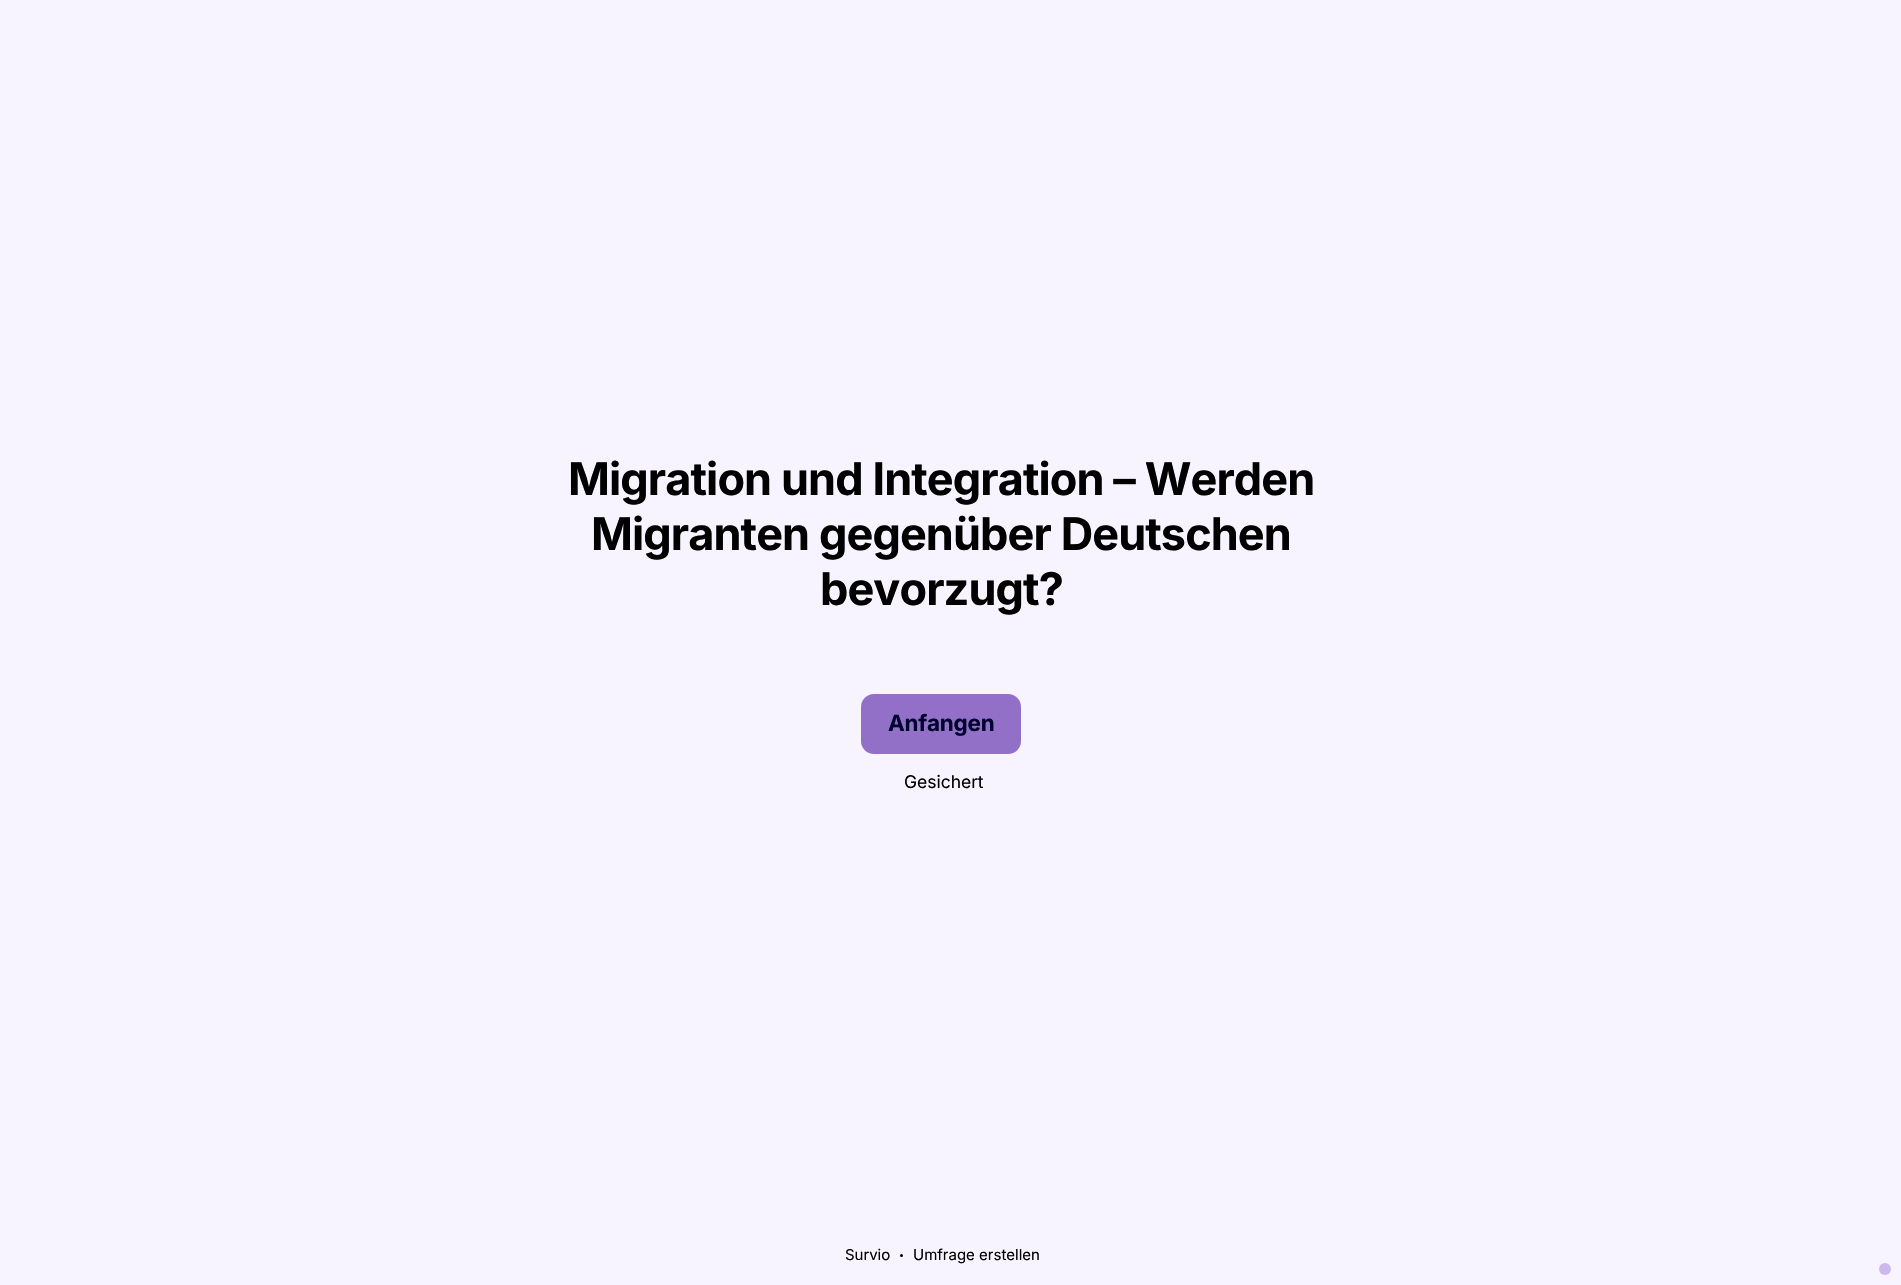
void draw(SkCanvas* c) {
SkPaint p;
p.setAntiAlias(true);
auto F=[&](const char* family, int weight, float size, bool italic = false){SkFontStyle style(weight, SkFontStyle::kNormal_Width,italic ? SkFontStyle::kItalic_Slant : SkFontStyle::kUpright_Slant);SkFont result(fontMgr->matchFamilyStyle(family, style), size);result.setSubpixel(true);return result;};
auto T=[&](const char* s, float x, float y, const SkFont& font){c->drawString(s, x, y, font, p);};
auto L=[&](const char* s, float x, float y, const SkFont& font, const SkPaint& ink, float letter, float word){std::vector<SkGlyphID> glyphs(font.countText(s, strlen(s), SkTextEncoding::kUTF8));std::vector<float> xs(glyphs.size());font.textToGlyphs(s, strlen(s), SkTextEncoding::kUTF8, glyphs);font.getXPos(glyphs, xs, x);float extra = 0;for (size_t i = 0; i < glyphs.size(); i++) {xs[i] += extra;extra += letter + word * (glyphs[i] == font.unicharToGlyph(' '));}c->drawTextBlob(SkTextBlob::MakeFromPosHGlyphs(glyphs, xs, y, font), 0, 0, ink);};
auto Q=[&](float x, float y, float w, float h, float radius){c->drawRoundRect(SkRect::MakeXYWH(x, y, w, h), radius, radius, p);};
c->clear(0xfff8f4ff);
auto f1 = F("Inter",700,45);
p.setColor(0xff000000);
L("Migration und Integration – Werden",568,495,f1,p,-.9,0);
L("Migranten gegenüber Deutschen",591,550,f1,p,-.9,0);
L("bevorzugt?",820,605,f1,p,-.9,0);
p.setColor(0xff9370c7);
Q(861,694,160,60,13);
auto f2 = F("Inter",700,22.5);
p.setColor(0xff00002e);
L("Anfangen",888,731,f2,p,-.25,0);
auto f3 = F("Inter",400,17.5);
p.setColor(0xff000000);
T("Gesichert",904,788,f3);
auto f4 = F("Inter",400,15);
T("Survio",845,1260,f4);
c->drawCircle(901.5,1255.5,1.5,p);
T("Umfrage erstellen",913,1260,f4);
p.setColor(0xffcdb8ed);
c->drawCircle(1885,1269,6,p);
}
